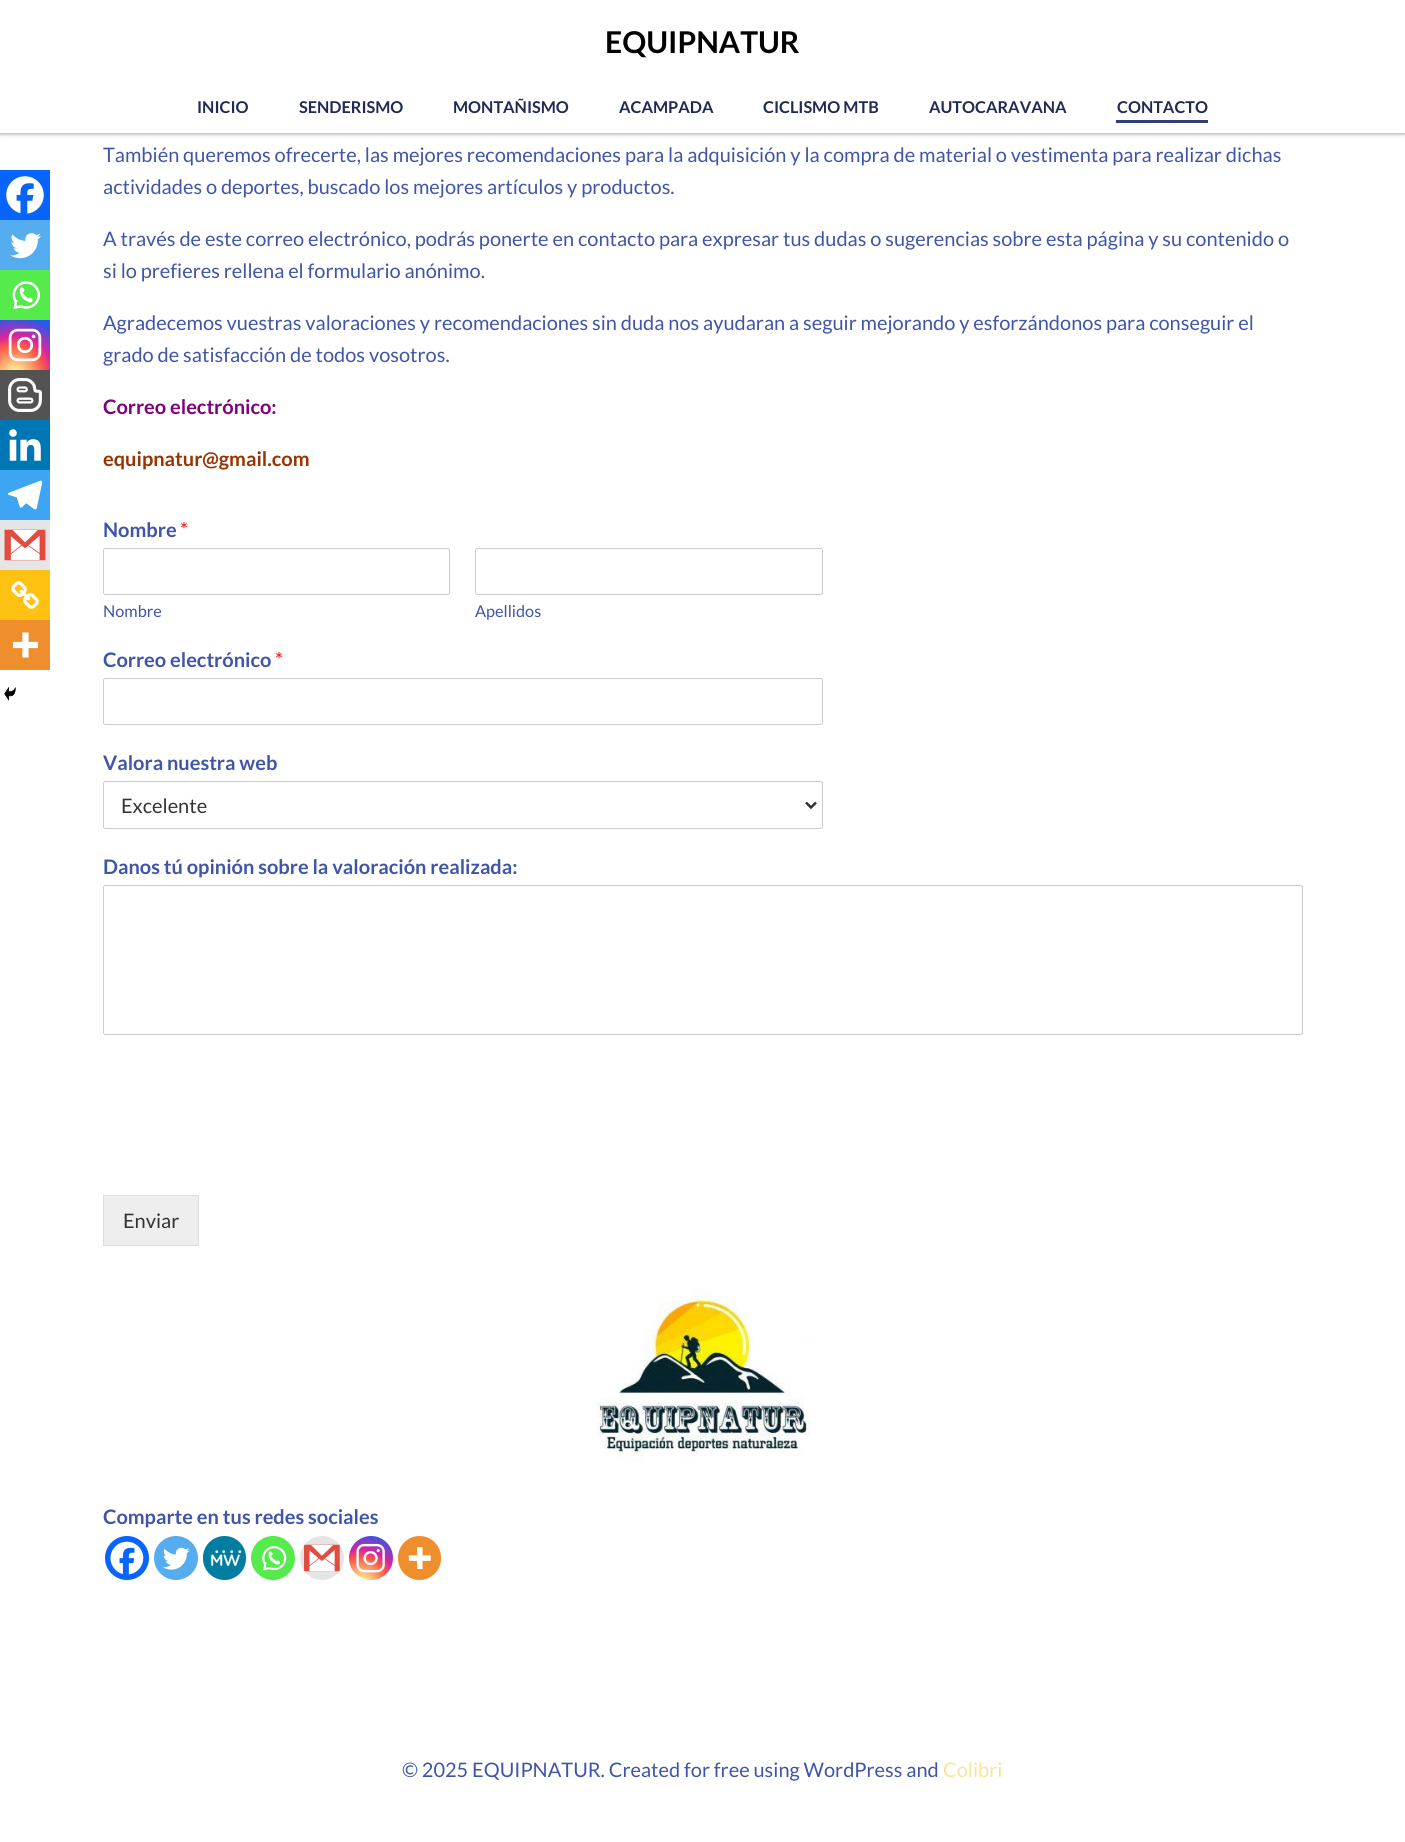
import math
import cairo

surface = cairo.ImageSurface(cairo.FORMAT_RGB24, 1405, 1842)
ctx = cairo.Context(surface)
options = cairo.FontOptions()
options.set_hint_metrics(cairo.HINT_METRICS_OFF)
options.set_hint_style(cairo.HINT_STYLE_NONE)
ctx.set_font_options(options)
ctx.set_miter_limit(4)


def set_color(code):
    ctx.set_source_rgb(*(v / 255 for v in bytes.fromhex(code[-6:])))


def draw_text(x, y, s, family, size, color, bold=False, italic=False):
    ctx.select_font_face(family, cairo.FONT_SLANT_ITALIC if italic else cairo.FONT_SLANT_NORMAL, cairo.FONT_WEIGHT_BOLD if bold else cairo.FONT_WEIGHT_NORMAL)
    ctx.set_font_size(size)
    set_color(color)
    ctx.move_to(x, y)
    ctx.show_text(s)


def fill_rect(x, y, w, h, color):
    set_color(color)
    ctx.rectangle(x, y, w, h)
    ctx.fill()


def rounded_rect(x, y, w, h, r):
    ctx.new_sub_path()
    for i, (u, v) in enumerate([(x + w - r, y + h - r), (x + r, y + h - r), (x + r, y + r), (x + w - r, y + r)]):
        ctx.arc(u, v, r, i * math.pi / 2, (i + 1) * math.pi / 2)
    ctx.close_path()


def draw_shadow(x, y, w, h, r, blur, alpha):
    ctx.push_group_with_content(cairo.CONTENT_ALPHA)
    ctx.set_operator(cairo.OPERATOR_SOURCE)
    for i in range(15, -16, -2):
        e = blur * i / 6
        if min(w, h) + 2 * e > 0:
            ctx.set_source_rgba(0, 0, 0, alpha * math.erfc((i - 1) / 8.5) / 2)
            rounded_rect(x - e, y - e, w + 2 * e, h + 2 * e, max(0, min(r + e + blur * .6, min(w, h) / 2 + e)))
            ctx.fill()
    ctx.mask(ctx.pop_group())


def draw_image(path, x, y, w, h):
    ctx.save()
    ctx.set_source_surface(cairo.ImageSurface.create_from_png(path), x, y)
    ctx.rectangle(x, y, w, h)
    ctx.fill()
    ctx.restore()


set_color("#ffffff")
ctx.paint()
set_color("#000000")
draw_shadow(0, 0, 1405, 133, 0, 2.5, 0.5)
fill_rect(0, 0, 1405, 133, "#ffffff")
draw_text(605, 53, "EQUIPNATUR", "Lato", 30, "#000000", bold=True)
draw_text(197, 113, "INICIO", "Lato", 16.25, "#202a54", bold=True)
draw_text(299, 113, "SENDERISMO", "Lato", 16.25, "#202a54", bold=True)
draw_text(453, 113, "MONTAÑISMO", "Lato", 16.25, "#202a54", bold=True)
draw_text(619, 113, "ACAMPADA", "Lato", 16.25, "#202a54", bold=True)
draw_text(763, 113, "CICLISMO MTB", "Lato", 16.25, "#202a54", bold=True)
draw_text(929, 113, "AUTOCARAVANA", "Lato", 16.25, "#202a54", bold=True)
draw_text(1117, 113, "CONTACTO", "Lato", 16.25, "#202a54", bold=True)
fill_rect(1116, 120, 92, 3, "#303e7a")
fill_rect(0, 170, 50, 50, "#0765fe")
draw_image("assets/img1.png", 6, 176, 38, 38)
fill_rect(0, 220, 50, 50, "#55acee")
draw_image("assets/img2.png", 10, 233, 31, 26)
fill_rect(0, 270, 50, 50, "#55eb4c")
draw_image("assets/img3.png", 12, 281, 28, 28)
gradient = cairo.RadialGradient(15, 374, 0, 15, 374, 64)
gradient.add_color_stop_rgba(0, 0.992, 0.957, 0.592, 1)
gradient.add_color_stop_rgba(0.05, 0.992, 0.957, 0.592, 1)
gradient.add_color_stop_rgba(0.45, 0.992, 0.349, 0.286, 1)
gradient.add_color_stop_rgba(0.6, 0.839, 0.141, 0.624, 1)
gradient.add_color_stop_rgba(0.9, 0.157, 0.353, 0.922, 1)
ctx.set_source(gradient)
ctx.rectangle(0, 320, 50, 50)
ctx.fill()
draw_image("assets/img4.png", 8, 328, 34, 34)
fill_rect(0, 370, 50, 50, "#535353")
draw_image("assets/img5.png", 8, 378, 34, 34)
fill_rect(0, 420, 50, 50, "#0077b5")
draw_image("assets/img6.png", 9, 429, 32, 32)
fill_rect(0, 470, 50, 50, "#3da5f1")
draw_image("assets/img7.png", 7, 480, 36, 30)
fill_rect(0, 520, 50, 50, "#e5e5e5")
draw_image("assets/img8.png", 4, 529, 42, 32)
fill_rect(0, 570, 50, 50, "#ffc112")
draw_image("assets/img9.png", 11, 581, 28, 28)
fill_rect(0, 620, 50, 50, "#ee8e2d")
draw_image("assets/img10.png", 12, 632, 26, 26)
draw_image("assets/img11.png", 4, 686, 12, 15)
draw_text(103, 162, "También queremos ofrecerte, las mejores recomendaciones para la adquisición y la compra de material o vestimenta para realizar dichas", "Lato", 20, "#4055a9")
draw_text(103, 194, "actividades o deportes, buscado los mejores artículos y productos.", "Lato", 20, "#4055a9")
draw_text(103, 246, "A través de este correo electrónico, podrás ponerte en contacto para expresar tus dudas o sugerencias sobre esta página y su contenido o", "Lato", 20, "#4055a9")
draw_text(103, 278, "si lo prefieres rellena el formulario anónimo.", "Lato", 20, "#4055a9")
draw_text(103, 330, "Agradecemos vuestras valoraciones y recomendaciones sin duda nos ayudaran a seguir mejorando y esforzándonos para conseguir el", "Lato", 20, "#4055a9")
draw_text(103, 362, "grado de satisfacción de todos vosotros.", "Lato", 20, "#4055a9")
draw_text(103, 414, "Correo electrónico:", "Lato", 20, "#800080", bold=True)
draw_text(103, 466, "equipnatur@gmail.com", "Lato", 20, "#993300", bold=True)
draw_text(103, 537, "Nombre", "Lato", 20, "#4055a9", bold=True)
draw_text(180, 537, "*", "Lato", 20, "#ff0000")
rounded_rect(103.5, 548.5, 346, 46, 2)
set_color("#cccccc")
ctx.set_line_width(1)
ctx.stroke()
draw_text(103, 617, "Nombre", "Lato", 16.25, "#4055a9")
rounded_rect(475.5, 548.5, 347, 46, 2)
set_color("#cccccc")
ctx.stroke()
draw_text(475, 617, "Apellidos", "Lato", 16.25, "#4055a9")
draw_text(103, 667, "Correo electrónico", "Lato", 20, "#4055a9", bold=True)
draw_text(275, 667, "*", "Lato", 20, "#ff0000")
rounded_rect(103.5, 678.5, 719, 46, 2)
set_color("#cccccc")
ctx.stroke()
draw_text(103, 770, "Valora nuestra web", "Lato", 20, "#4055a9", bold=True)
rounded_rect(103.5, 781.5, 719, 47, 2)
set_color("#cccccc")
ctx.stroke()
ctx.new_path()
ctx.move_to(806, 802.5)
ctx.line_to(811, 807.5)
ctx.line_to(816, 802.5)
set_color("#333333")
ctx.set_line_width(2.5)
ctx.stroke()
draw_text(121, 813, "Excelente", "Lato", 20, "#333333")
draw_text(103, 874, "Danos tú opinión sobre la valoración realizada:", "Lato", 20, "#4055a9", bold=True)
rounded_rect(103.5, 885.5, 1199, 149, 2)
set_color("#cccccc")
ctx.set_line_width(1)
ctx.stroke()
set_color("#eeeeee")
ctx.rectangle(103.5, 1195.5, 95, 50)
ctx.fill_preserve()
set_color("#dddddd")
ctx.stroke()
draw_text(123, 1228, "Enviar", "Lato", 20, "#333333")
draw_image("assets/img12.png", 597, 1289, 214, 173)
draw_text(103, 1524, "Comparte en tus redes sociales", "Lato", 20, "#4055a9", bold=True)
set_color("#0765fe")
ctx.new_path()
ctx.arc(127, 1558, 22, 0, 2 * math.pi)
ctx.fill()
draw_image("assets/img13.png", 110, 1541, 34, 34)
set_color("#55acee")
ctx.arc(176, 1558, 22, 0, 2 * math.pi)
ctx.fill()
draw_image("assets/img14.png", 163, 1547, 27, 23)
set_color("#007da1")
rounded_rect(203, 1536, 43, 44, 21.5)
ctx.fill()
draw_image("assets/img15.png", 211, 1550, 31, 16)
set_color("#55eb4c")
ctx.arc(273, 1558, 22, 0, 2 * math.pi)
ctx.fill()
draw_image("assets/img16.png", 262, 1546, 25, 25)
set_color("#e5e5e5")
ctx.arc(322, 1558, 22, 0, 2 * math.pi)
ctx.fill()
draw_image("assets/img17.png", 303, 1544, 37, 28)
gradient = cairo.RadialGradient(362, 1583, 0, 362, 1583, 56)
gradient.add_color_stop_rgba(0, 0.992, 0.957, 0.592, 1)
gradient.add_color_stop_rgba(0.05, 0.992, 0.957, 0.592, 1)
gradient.add_color_stop_rgba(0.45, 0.992, 0.349, 0.286, 1)
gradient.add_color_stop_rgba(0.6, 0.839, 0.141, 0.624, 1)
gradient.add_color_stop_rgba(0.9, 0.157, 0.353, 0.922, 1)
ctx.set_source(gradient)
ctx.arc(371, 1558, 22, 0, 2 * math.pi)
ctx.fill()
draw_image("assets/img18.png", 356, 1543, 29, 30)
set_color("#ee8e2d")
rounded_rect(398, 1536, 43, 44, 21.5)
ctx.fill()
draw_image("assets/img19.png", 408, 1547, 23, 23)
draw_text(402, 1777, "© 2025 EQUIPNATUR. Created for free using WordPress and", "Lato", 20, "#4055a9")
draw_text(943, 1777, "Colibri", "Lato", 20, "#f7e597")
surface.write_to_png("output.png")
